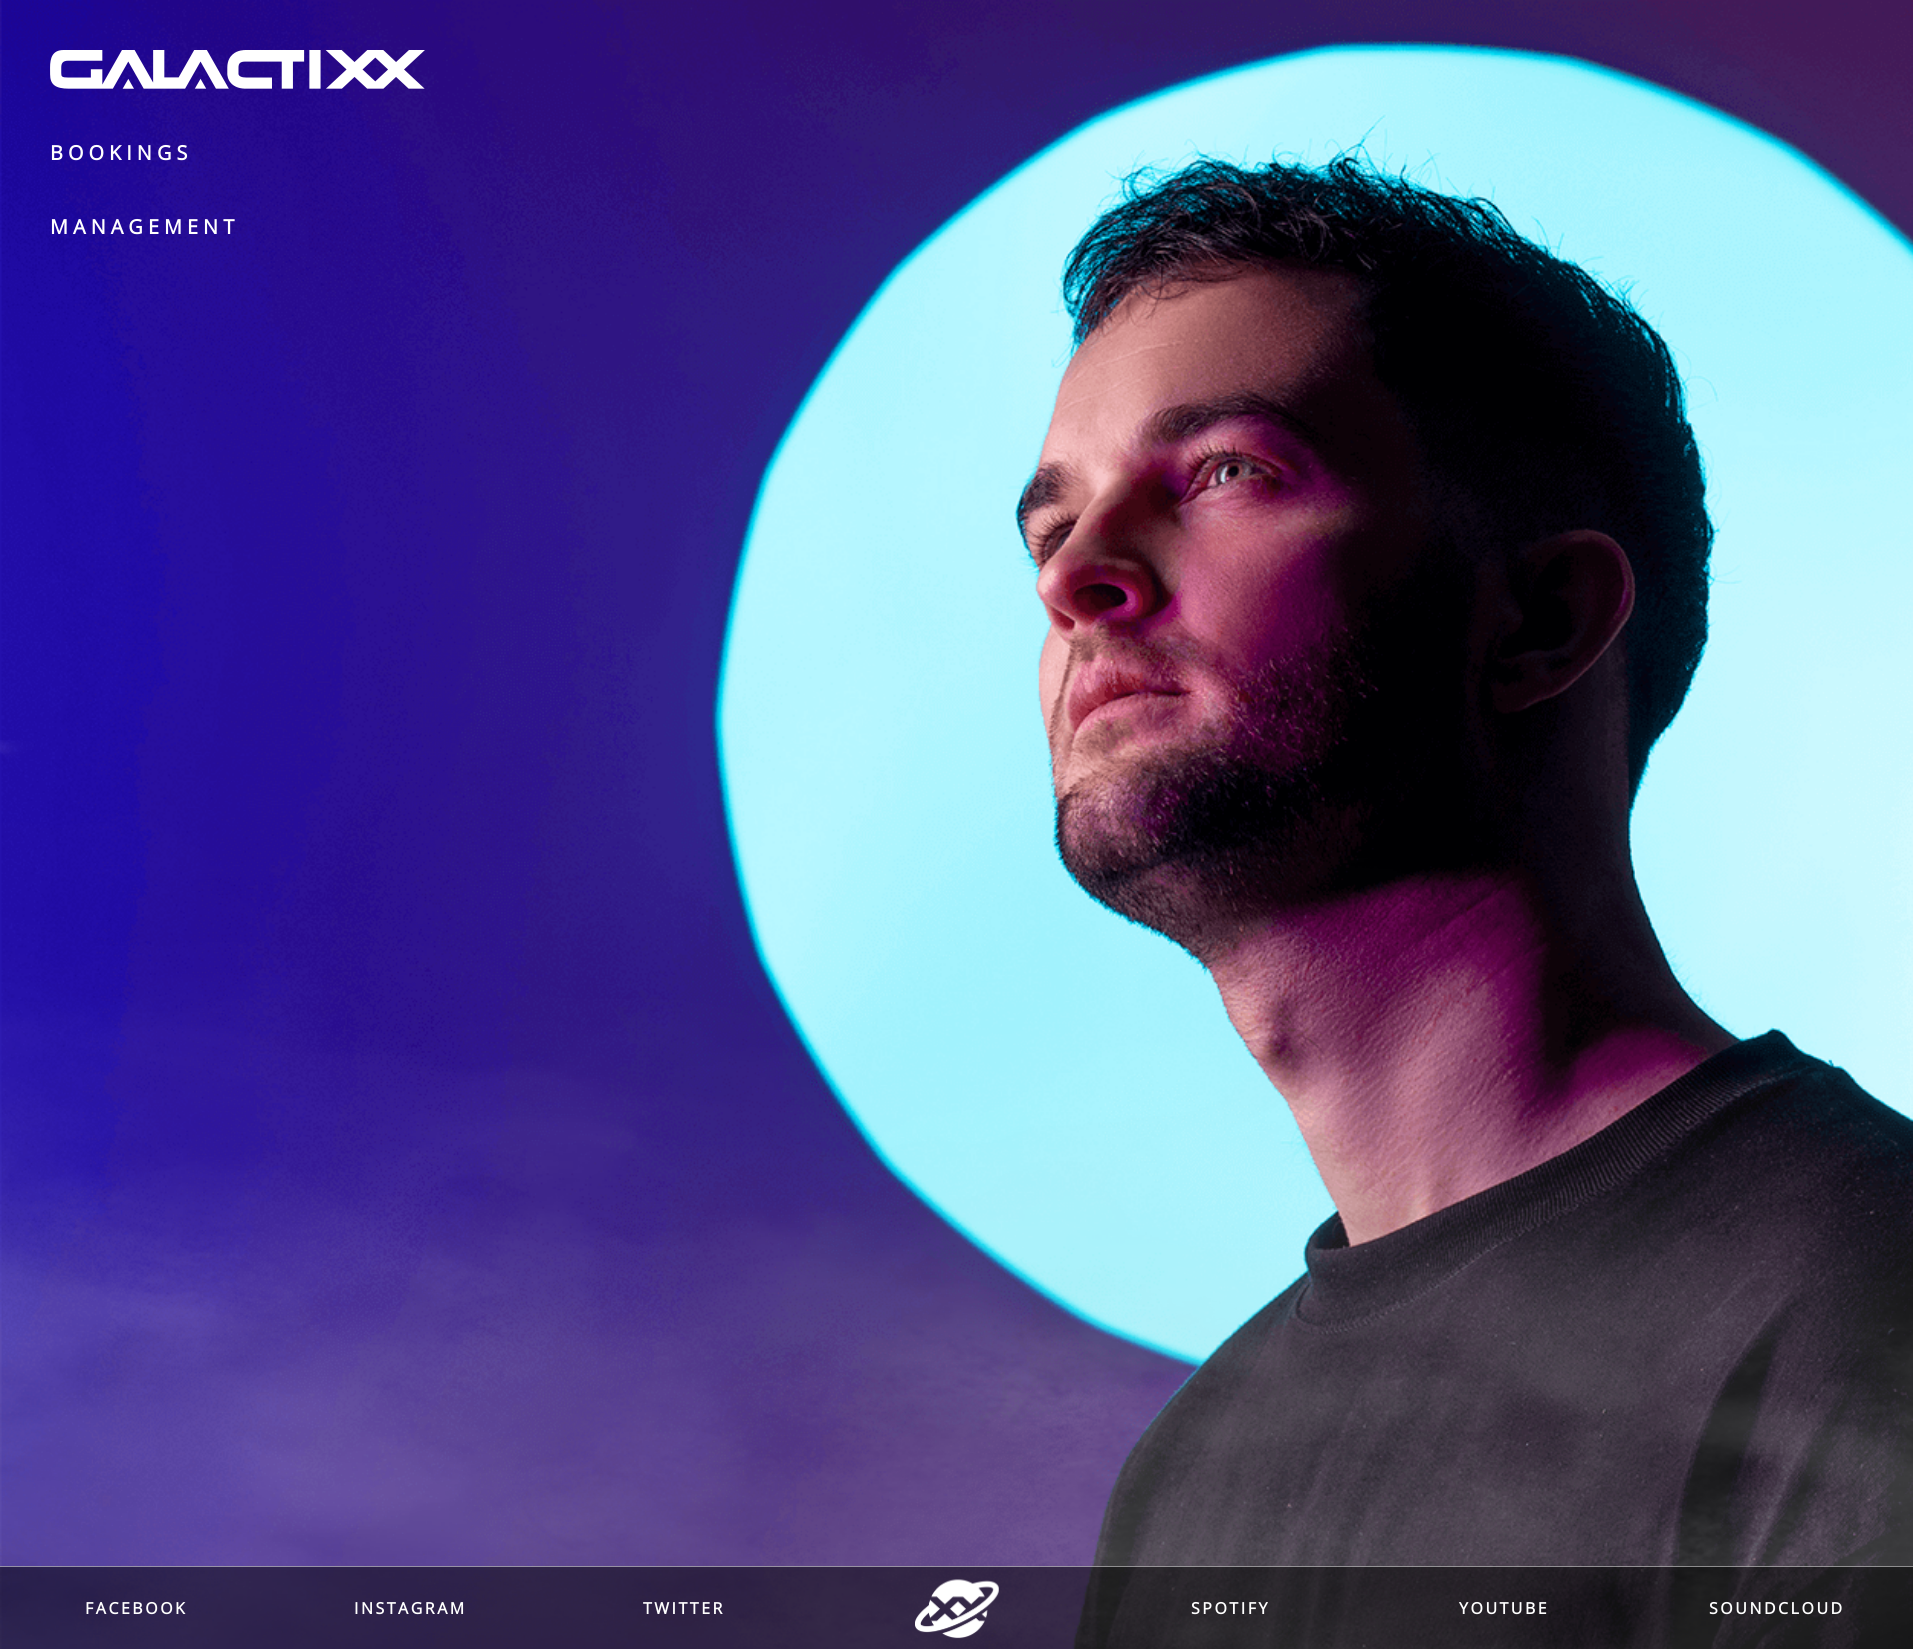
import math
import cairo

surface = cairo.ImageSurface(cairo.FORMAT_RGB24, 1913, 1649)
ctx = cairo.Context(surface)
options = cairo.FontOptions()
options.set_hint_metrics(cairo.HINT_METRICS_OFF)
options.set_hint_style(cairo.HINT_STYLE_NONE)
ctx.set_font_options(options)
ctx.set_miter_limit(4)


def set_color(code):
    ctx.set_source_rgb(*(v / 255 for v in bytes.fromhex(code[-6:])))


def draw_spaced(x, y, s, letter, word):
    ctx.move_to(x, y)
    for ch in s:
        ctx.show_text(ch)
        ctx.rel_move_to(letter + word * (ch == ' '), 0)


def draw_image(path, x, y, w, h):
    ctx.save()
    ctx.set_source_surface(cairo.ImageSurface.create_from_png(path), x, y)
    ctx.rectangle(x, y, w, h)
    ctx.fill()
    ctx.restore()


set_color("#ffffff")
ctx.paint()
draw_image("assets/img1.png", 0, 0, 1913, 1649)
draw_image("assets/img2.png", 50, 50, 375, 39)
ctx.select_font_face("Open Sans", cairo.FONT_SLANT_NORMAL, cairo.FONT_WEIGHT_BOLD)
ctx.set_font_size(20)
set_color("#ffffff")
draw_spaced(50, 160, "BOOKINGS", 5, 0)
draw_spaced(50, 234, "MANAGEMENT", 5, 0)
draw_image("assets/img3.png", 0, 740, 1913, 909)
ctx.set_source_rgba(0, 0, 0, 0.5)
ctx.rectangle(0, 1566, 1913, 83)
ctx.fill()
ctx.set_source_rgba(1, 1, 1, 0.5)
ctx.rectangle(0, 1566, 1913, 1)
ctx.fill()
ctx.set_font_size(16)
set_color("#ffffff")
draw_spaced(85, 1614, "FACEBOOK", 2.5, 0)
draw_spaced(354, 1614, "INSTAGRAM", 2.5, 0)
draw_spaced(643, 1614, "TWITTER", 2.5, 0)
draw_image("assets/img4.png", 915, 1579, 84, 60)
draw_spaced(1191, 1614, "SPOTIFY", 2.5, 0)
draw_spaced(1459, 1614, "YOUTUBE", 2.5, 0)
draw_spaced(1709, 1614, "SOUNDCLOUD", 2.5, 0)
surface.write_to_png("output.png")
